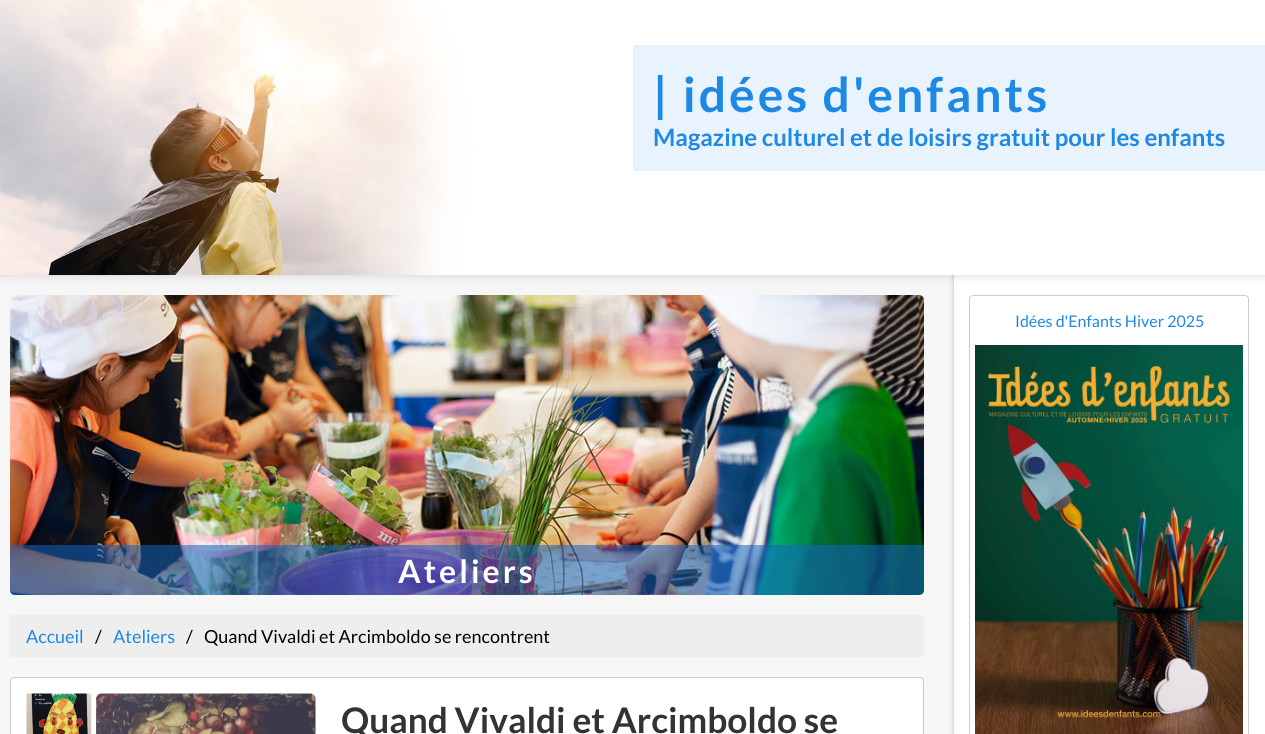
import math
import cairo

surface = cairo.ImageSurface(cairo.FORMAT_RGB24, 1265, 734)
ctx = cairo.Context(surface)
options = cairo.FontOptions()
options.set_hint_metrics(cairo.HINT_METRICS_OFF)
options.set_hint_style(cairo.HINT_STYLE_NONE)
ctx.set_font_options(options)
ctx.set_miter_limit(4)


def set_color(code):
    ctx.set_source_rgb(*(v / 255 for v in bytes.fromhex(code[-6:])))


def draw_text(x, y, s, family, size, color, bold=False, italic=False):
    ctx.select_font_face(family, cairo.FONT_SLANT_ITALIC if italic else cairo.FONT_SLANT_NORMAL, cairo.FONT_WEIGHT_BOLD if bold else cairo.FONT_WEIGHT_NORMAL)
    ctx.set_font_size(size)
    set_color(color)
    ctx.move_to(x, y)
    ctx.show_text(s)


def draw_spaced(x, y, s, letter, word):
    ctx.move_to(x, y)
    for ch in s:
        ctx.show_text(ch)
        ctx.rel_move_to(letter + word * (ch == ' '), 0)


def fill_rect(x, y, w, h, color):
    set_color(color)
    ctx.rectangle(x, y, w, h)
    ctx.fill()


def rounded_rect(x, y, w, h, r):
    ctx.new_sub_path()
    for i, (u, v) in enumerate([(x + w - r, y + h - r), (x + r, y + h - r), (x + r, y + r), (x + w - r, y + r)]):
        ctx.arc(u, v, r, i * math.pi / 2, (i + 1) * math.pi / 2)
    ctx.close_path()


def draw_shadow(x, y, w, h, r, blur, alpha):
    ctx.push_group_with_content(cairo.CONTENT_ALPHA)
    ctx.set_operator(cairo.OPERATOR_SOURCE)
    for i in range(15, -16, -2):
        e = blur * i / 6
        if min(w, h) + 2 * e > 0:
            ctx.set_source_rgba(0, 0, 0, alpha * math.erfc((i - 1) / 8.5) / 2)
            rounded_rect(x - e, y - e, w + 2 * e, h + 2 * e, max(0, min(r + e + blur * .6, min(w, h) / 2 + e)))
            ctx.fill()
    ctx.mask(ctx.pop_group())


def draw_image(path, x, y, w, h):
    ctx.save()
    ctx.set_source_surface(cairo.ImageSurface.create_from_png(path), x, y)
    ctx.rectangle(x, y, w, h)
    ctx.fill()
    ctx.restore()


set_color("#f6f6f6")
ctx.paint()
set_color("#000000")
draw_shadow(954, 275, 311, 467, 0, 2.5, 0.25)
fill_rect(954, 275, 311, 459, "#ffffff")
set_color("#000000")
draw_shadow(0, 0, 1265, 275, 0, 5, 0.15)
draw_image("assets/img1.png", 0, 0, 1265, 275)
fill_rect(633, 45, 632, 126, "#e9f3fd")
ctx.select_font_face("Lato", cairo.FONT_SLANT_NORMAL, cairo.FONT_WEIGHT_BOLD)
ctx.set_font_size(48)
set_color("#1e88e5")
draw_spaced(653, 112, "| idées d'enfants", 3, 0)
draw_text(653, 146, "Magazine culturel et de loisirs gratuit pour les enfants", "Lato", 24, "#1e88e5", bold=True)
rounded_rect(969.5, 295.5, 279, 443, 3.5)
set_color("#cccccc")
ctx.set_line_width(1)
ctx.stroke()
draw_text(1015, 327, "Idées d'Enfants Hiver 2025", "Lato", 16, "#1e88e5")
draw_image("assets/img2.png", 975, 345, 268, 389)
draw_image("assets/img3.png", 10, 295, 914, 300)
ctx.set_source_rgba(0.082, 0.396, 0.753, 0.55)
ctx.new_path()
ctx.move_to(10, 545)
ctx.line_to(924, 545)
ctx.line_to(924, 590)
ctx.curve_to(924, 593, 922, 595, 919, 595)
ctx.line_to(15, 595)
ctx.curve_to(12, 595, 10, 593, 10, 590)
ctx.close_path()
ctx.fill()
ctx.select_font_face("Lato", cairo.FONT_SLANT_NORMAL, cairo.FONT_WEIGHT_BOLD)
ctx.set_font_size(32)
set_color("#ffffff")
draw_spaced(398, 583, "Ateliers", 3, 0)
fill_rect(10, 615, 914, 42, "#eeeeee")
draw_text(26, 643, "Accueil", "Lato", 18, "#1e88e5")
draw_text(95, 643, "/", "Lato", 18, "#000000")
draw_text(113, 643, "Ateliers", "Lato", 18, "#1e88e5")
draw_text(186, 643, "/", "Lato", 18, "#000000")
draw_text(204, 643, "Quand Vivaldi et Arcimboldo se rencontrent", "Lato", 18, "#000000")
set_color("#ffffff")
rounded_rect(10.5, 677.5, 913, 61, 3.5)
ctx.fill_preserve()
set_color("#cccccc")
ctx.stroke()
draw_image("assets/img4.png", 26, 693, 290, 41)
draw_text(341, 733, "Quand Vivaldi et Arcimboldo se", "Lato", 35.25, "#333333", bold=True)
surface.write_to_png("output.png")
